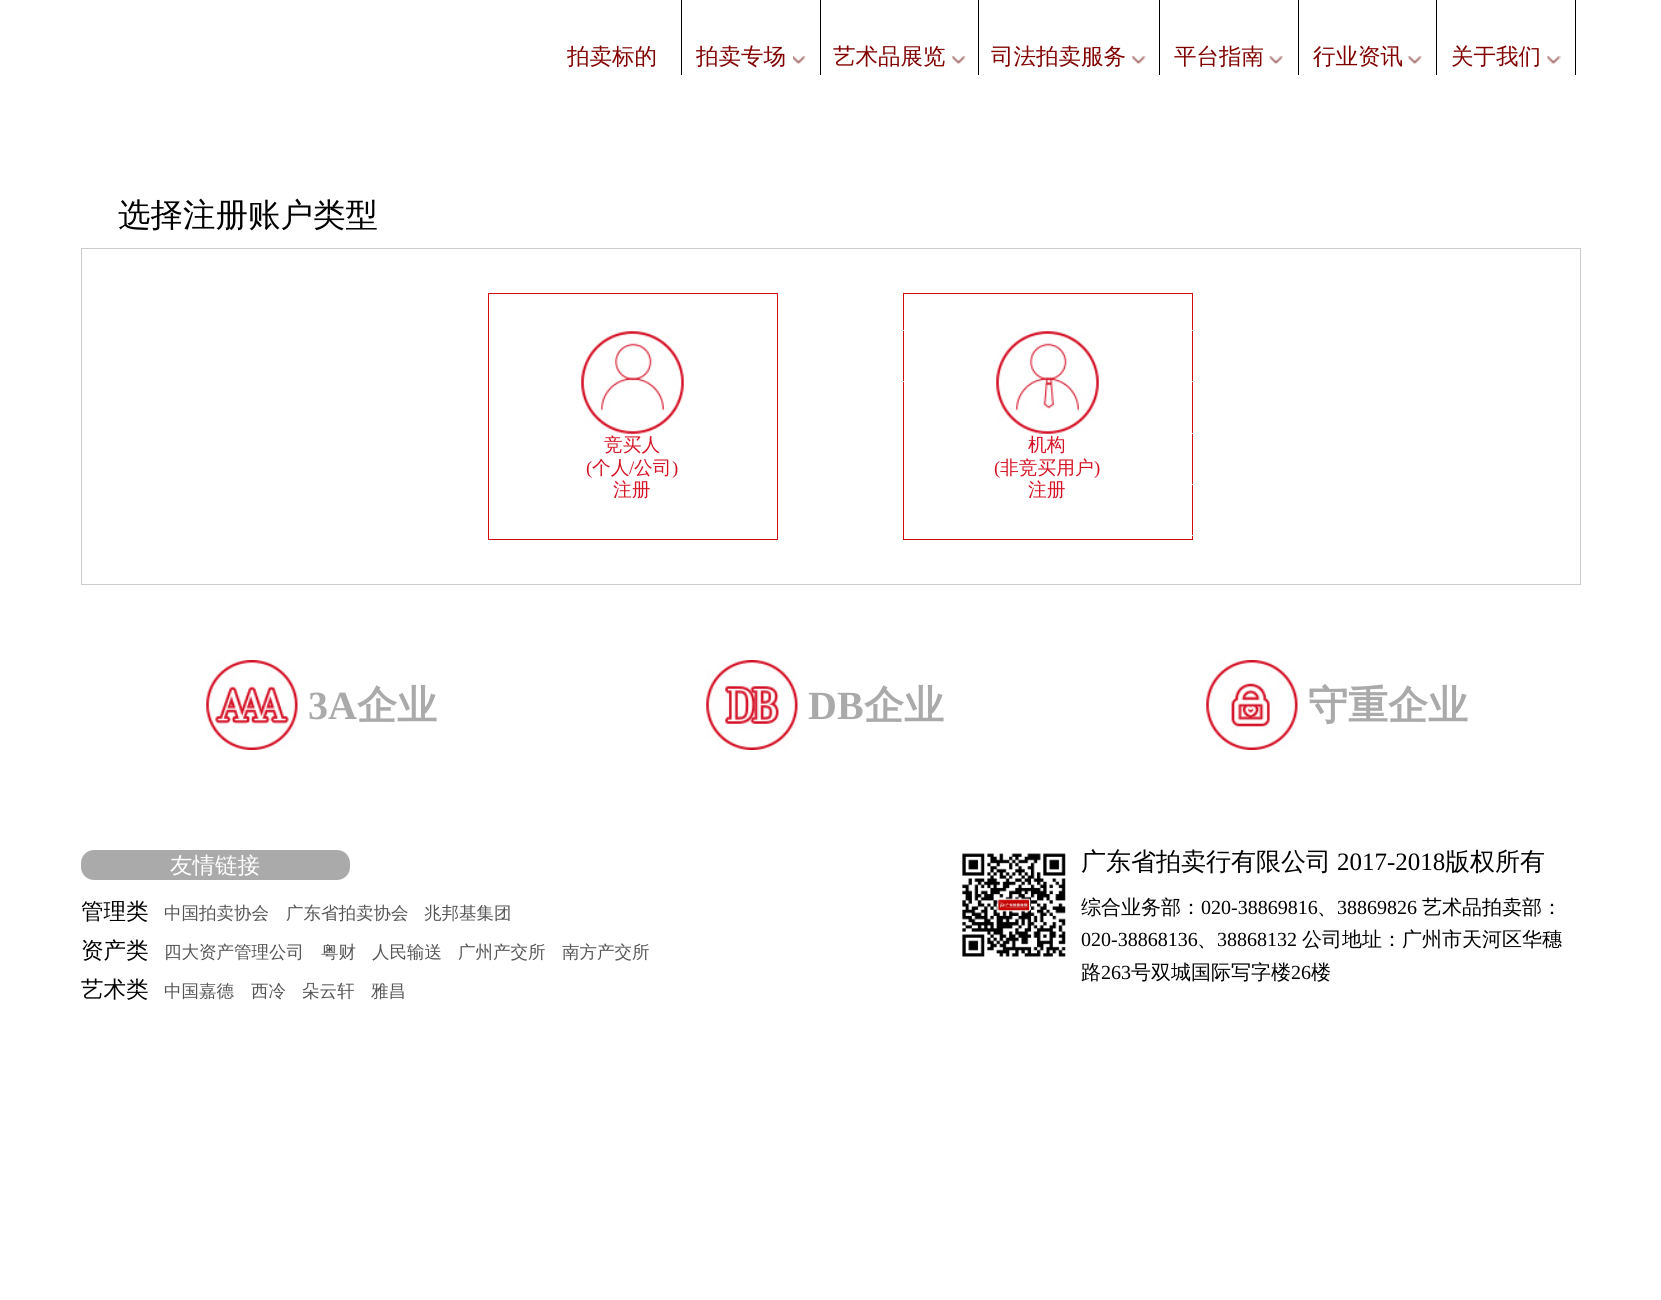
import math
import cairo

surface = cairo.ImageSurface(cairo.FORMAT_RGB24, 1661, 1300)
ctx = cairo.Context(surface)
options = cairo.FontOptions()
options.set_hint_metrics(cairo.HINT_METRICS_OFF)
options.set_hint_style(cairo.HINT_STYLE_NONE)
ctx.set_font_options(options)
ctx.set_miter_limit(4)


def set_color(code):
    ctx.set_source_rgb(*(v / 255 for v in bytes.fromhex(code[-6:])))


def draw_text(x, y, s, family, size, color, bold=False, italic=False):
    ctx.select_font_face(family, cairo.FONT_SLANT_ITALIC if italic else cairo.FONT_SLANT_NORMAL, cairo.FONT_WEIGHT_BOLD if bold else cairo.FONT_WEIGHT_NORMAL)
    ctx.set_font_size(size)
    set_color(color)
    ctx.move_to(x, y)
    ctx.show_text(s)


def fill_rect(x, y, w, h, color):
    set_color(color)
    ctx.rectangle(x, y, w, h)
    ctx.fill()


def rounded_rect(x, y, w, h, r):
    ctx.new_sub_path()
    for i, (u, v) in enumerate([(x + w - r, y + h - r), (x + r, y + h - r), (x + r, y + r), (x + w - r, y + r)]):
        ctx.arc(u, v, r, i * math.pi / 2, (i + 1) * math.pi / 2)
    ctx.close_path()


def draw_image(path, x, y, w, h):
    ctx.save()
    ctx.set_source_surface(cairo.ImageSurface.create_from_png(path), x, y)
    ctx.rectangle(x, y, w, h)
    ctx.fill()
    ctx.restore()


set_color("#ffffff")
ctx.paint()
fill_rect(681, 0, 1, 75, "#000000")
draw_text(567, 64, "拍卖标的", "WenQuanYi Zen Hei Medium", 22.5, "#810000")
fill_rect(820, 0, 1, 75, "#000000")
draw_text(696, 64, "拍卖专场", "WenQuanYi Zen Hei Medium", 22.5, "#810000")
draw_image("assets/img1.png", 793, 56, 13, 8)
fill_rect(978, 0, 1, 75, "#000000")
draw_text(833, 64, "艺术品展览", "WenQuanYi Zen Hei Medium", 22.5, "#810000")
draw_image("assets/img2.png", 952, 56, 14, 8)
ctx.rectangle(903.5, 293.5, 289, 246)
set_color("#d00e0e")
ctx.set_line_width(1)
ctx.stroke()
fill_rect(903, 330, 1, 1, "#ffffff")
fill_rect(903, 381, 1, 1, "#ffffff")
fill_rect(1159, 0, 1, 75, "#000000")
draw_text(991, 64, "司法拍卖服务", "WenQuanYi Zen Hei Medium", 22.5, "#810000")
draw_image("assets/img3.png", 1132, 56, 14, 8)
fill_rect(1298, 0, 1, 75, "#000000")
draw_text(1174, 64, "平台指南", "WenQuanYi Zen Hei Medium", 22.5, "#810000")
draw_image("assets/img4.png", 1269, 56, 14, 8)
fill_rect(1192, 330, 1, 1, "#ffffff")
fill_rect(1192, 381, 1, 1, "#ffffff")
fill_rect(1192, 433, 1, 1, "#ffffff")
fill_rect(1192, 484, 1, 1, "#ffffff")
fill_rect(1192, 535, 1, 1, "#ffffff")
fill_rect(1436, 0, 1, 75, "#000000")
draw_text(1313, 64, "行业资讯", "WenQuanYi Zen Hei Medium", 22.5, "#810000")
draw_image("assets/img5.png", 1408, 56, 14, 8)
fill_rect(1575, 0, 1, 75, "#000000")
draw_text(1451, 64, "关于我们", "WenQuanYi Zen Hei Medium", 22.5, "#810000")
draw_image("assets/img6.png", 1547, 56, 14, 8)
fill_rect(81, 248, 1500, 1, "#cccccc")
draw_text(118, 226, "选择注册账户类型", "WenQuanYi Zen Hei Medium", 32.5, "#000000")
fill_rect(1580, 249, 1, 336, "#cccccc")
fill_rect(81, 584, 1500, 1, "#cccccc")
fill_rect(81, 249, 1, 336, "#cccccc")
ctx.rectangle(488.5, 293.5, 289, 246)
set_color("#d00e0e")
ctx.stroke()
draw_image("assets/img7.png", 581, 331, 103, 103)
draw_text(604, 451, "竞买人", "WenQuanYi Zen Hei Medium", 18.75, "#d41324")
draw_text(586, 474, "(", "Liberation Serif", 18.75, "#d41324")
draw_text(592, 474, "个人", "WenQuanYi Zen Hei Medium", 18.75, "#d41324")
draw_text(629, 474, "/", "Liberation Serif", 18.75, "#d41324")
draw_text(634, 474, "公司", "WenQuanYi Zen Hei Medium", 18.75, "#d41324")
draw_text(672, 474, ")", "Liberation Serif", 18.75, "#d41324")
draw_text(613, 496, "注册", "WenQuanYi Zen Hei Medium", 18.75, "#d41324")
draw_image("assets/img8.png", 996, 331, 103, 103)
draw_text(1028, 451, "机构", "WenQuanYi Zen Hei Medium", 18.75, "#d41324")
draw_text(994, 474, "(", "Liberation Serif", 18.75, "#d41324")
draw_text(1000, 474, "非竞买用户", "WenQuanYi Zen Hei Medium", 18.75, "#d41324")
draw_text(1094, 474, ")", "Liberation Serif", 18.75, "#d41324")
draw_text(1028, 496, "注册", "WenQuanYi Zen Hei Medium", 18.75, "#d41324")
draw_image("assets/img9.png", 206, 660, 92, 90)
draw_text(308, 719, "3A", "Liberation Serif", 40, "#aaaaaa", bold=True)
draw_text(357, 719, "企业", "WenQuanYi Zen Hei", 40, "#aaaaaa", bold=True)
draw_image("assets/img10.png", 706, 660, 92, 90)
draw_text(808, 719, "DB", "Liberation Serif", 40, "#aaaaaa", bold=True)
draw_text(864, 719, "企业", "WenQuanYi Zen Hei", 40, "#aaaaaa", bold=True)
draw_image("assets/img11.png", 1206, 660, 92, 90)
draw_text(1308, 719, "守重企业", "WenQuanYi Zen Hei", 40, "#aaaaaa", bold=True)
rounded_rect(81, 850, 269, 30, 13)
ctx.fill()
draw_text(170, 873, "友情链接", "WenQuanYi Zen Hei Medium", 22.5, "#ffffff")
draw_text(81, 919, "管理类", "WenQuanYi Zen Hei Medium", 22.5, "#000000")
draw_text(164, 919, "中国拍卖协会", "WenQuanYi Zen Hei Medium", 17.5, "#555555")
draw_text(286, 919, "广东省拍卖协会", "WenQuanYi Zen Hei Medium", 17.5, "#555555")
draw_text(424, 919, "兆邦基集团", "WenQuanYi Zen Hei Medium", 17.5, "#555555")
draw_text(81, 958, "资产类", "WenQuanYi Zen Hei Medium", 22.5, "#000000")
draw_text(164, 958, "四大资产管理公司", "WenQuanYi Zen Hei Medium", 17.5, "#555555")
draw_text(321, 958, "粤财", "WenQuanYi Zen Hei Medium", 17.5, "#555555")
draw_text(372, 958, "人民输送", "WenQuanYi Zen Hei Medium", 17.5, "#555555")
draw_text(458, 958, "广州产交所", "WenQuanYi Zen Hei Medium", 17.5, "#555555")
draw_text(562, 958, "南方产交所", "WenQuanYi Zen Hei Medium", 17.5, "#555555")
draw_text(81, 997, "艺术类", "WenQuanYi Zen Hei Medium", 22.5, "#000000")
draw_text(164, 997, "中国嘉德", "WenQuanYi Zen Hei Medium", 17.5, "#555555")
draw_text(251, 997, "西冷", "WenQuanYi Zen Hei Medium", 17.5, "#555555")
draw_text(302, 997, "朵云轩", "WenQuanYi Zen Hei Medium", 17.5, "#555555")
draw_text(371, 997, "雅昌", "WenQuanYi Zen Hei Medium", 17.5, "#555555")
draw_image("assets/img12.png", 962, 853, 104, 104)
draw_text(1081, 870, "广东省拍卖行有限公司", "WenQuanYi Zen Hei Medium", 25, "#000000")
draw_text(1337, 870, "2017-2018", "Liberation Serif", 25, "#000000")
draw_text(1445, 870, "版权所有", "WenQuanYi Zen Hei Medium", 25, "#000000")
draw_text(1081, 914, "综合业务部：", "WenQuanYi Zen Hei Medium", 20, "#000000")
draw_text(1201, 914, "020-38869816", "Liberation Serif", 20, "#000000")
draw_text(1317, 914, "、", "WenQuanYi Zen Hei Medium", 20, "#000000")
draw_text(1337, 914, "38869826", "Liberation Serif", 20, "#000000")
draw_text(1422, 914, "艺术品拍卖部：", "WenQuanYi Zen Hei Medium", 20, "#000000")
draw_text(1081, 946, "020-38868136", "Liberation Serif", 20, "#000000")
draw_text(1197, 946, "、", "WenQuanYi Zen Hei Medium", 20, "#000000")
draw_text(1217, 946, "38868132", "Liberation Serif", 20, "#000000")
draw_text(1302, 946, "公司地址：广州市天河区华穗", "WenQuanYi Zen Hei Medium", 20, "#000000")
draw_text(1081, 979, "路", "WenQuanYi Zen Hei Medium", 20, "#000000")
draw_text(1101, 979, "263", "Liberation Serif", 20, "#000000")
draw_text(1131, 979, "号双城国际写字楼", "WenQuanYi Zen Hei Medium", 20, "#000000")
draw_text(1291, 979, "26", "Liberation Serif", 20, "#000000")
draw_text(1311, 979, "楼", "WenQuanYi Zen Hei Medium", 20, "#000000")
surface.write_to_png("output.png")
